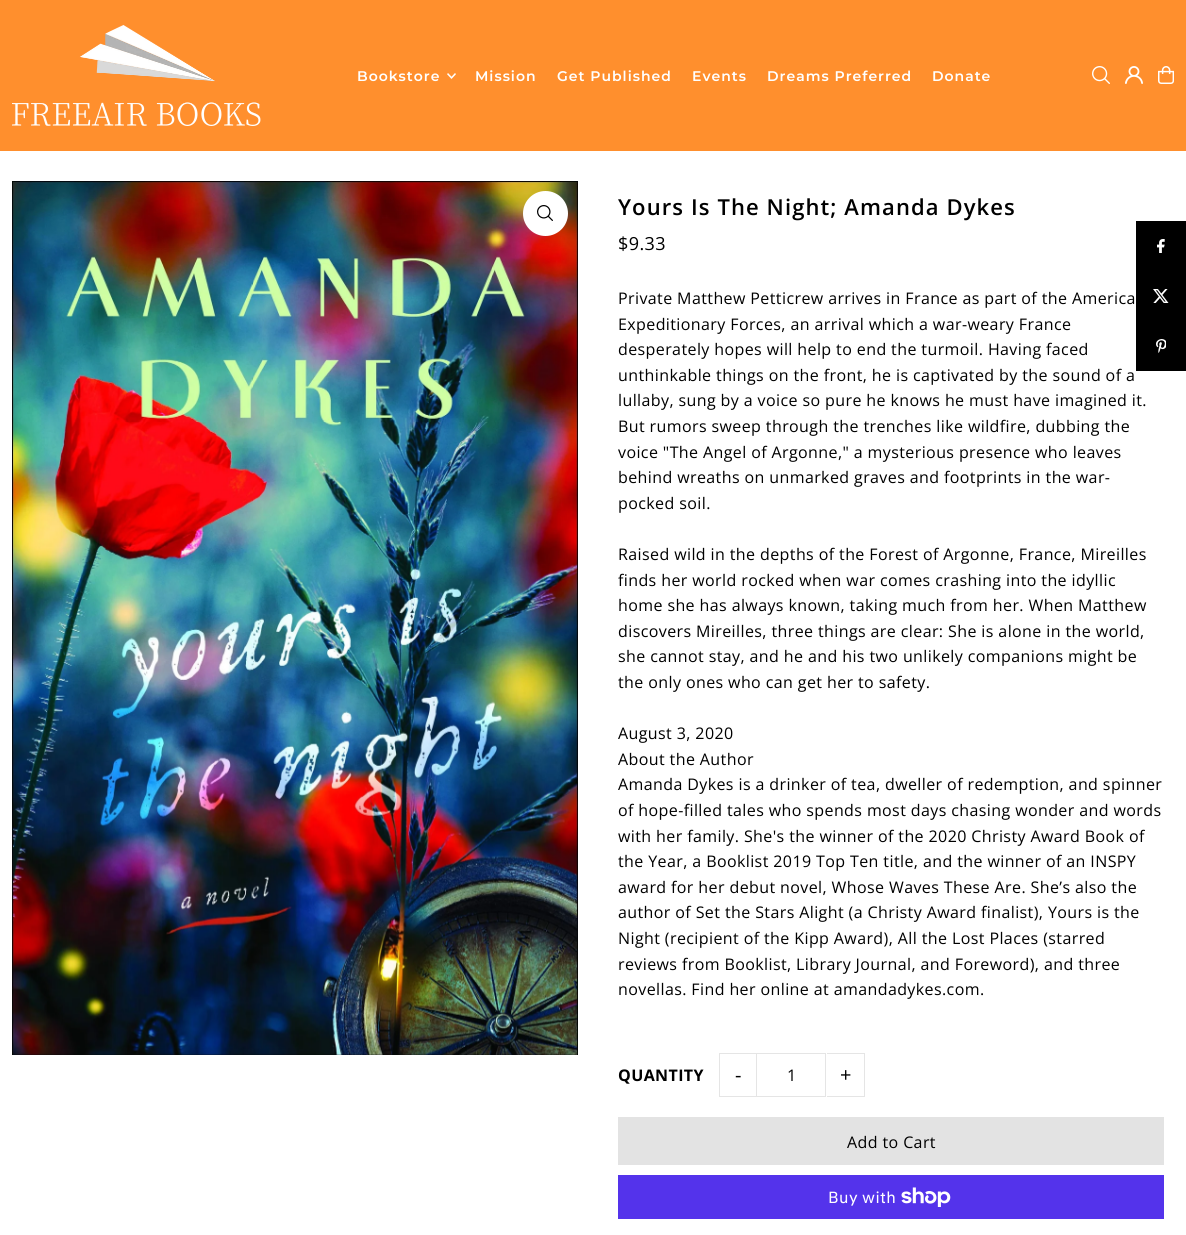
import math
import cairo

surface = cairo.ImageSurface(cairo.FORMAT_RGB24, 1186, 1235)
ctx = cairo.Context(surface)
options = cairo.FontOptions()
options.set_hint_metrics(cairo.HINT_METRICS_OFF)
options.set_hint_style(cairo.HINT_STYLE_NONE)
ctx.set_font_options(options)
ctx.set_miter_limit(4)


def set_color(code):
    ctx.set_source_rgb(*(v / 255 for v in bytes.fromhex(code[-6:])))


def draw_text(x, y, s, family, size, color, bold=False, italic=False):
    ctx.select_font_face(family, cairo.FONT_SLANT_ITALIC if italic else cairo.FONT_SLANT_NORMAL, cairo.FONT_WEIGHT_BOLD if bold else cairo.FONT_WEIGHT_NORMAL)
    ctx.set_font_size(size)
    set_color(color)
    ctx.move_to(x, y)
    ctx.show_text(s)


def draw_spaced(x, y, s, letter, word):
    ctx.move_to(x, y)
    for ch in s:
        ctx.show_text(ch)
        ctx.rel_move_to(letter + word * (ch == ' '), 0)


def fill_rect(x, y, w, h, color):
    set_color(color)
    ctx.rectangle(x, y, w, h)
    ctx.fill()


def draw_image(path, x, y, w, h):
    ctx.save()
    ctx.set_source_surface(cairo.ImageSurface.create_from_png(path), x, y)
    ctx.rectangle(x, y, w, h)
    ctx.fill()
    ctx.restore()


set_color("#ffffff")
ctx.paint()
fill_rect(0, 0, 1186, 151, "#ff8f2d")
draw_image("assets/img1.png", 12, 25, 249, 101)
ctx.select_font_face("Montserrat SemiBold")
ctx.set_font_size(14)
set_color("#ffffff")
draw_spaced(357, 81, "Bookstore", 1, 0)
draw_image("assets/img2.png", 447, 73, 9, 6)
draw_spaced(475, 81, "Mission", 1, 0)
draw_spaced(557, 81, "Get Published", 1, 0)
draw_spaced(692, 81, "Events", 1, 0)
draw_spaced(767, 81, "Dreams Preferred", 1, 0)
draw_spaced(932, 81, "Donate", 1, 0)
draw_image("assets/img3.png", 1092, 66, 18, 18)
draw_image("assets/img4.png", 1125, 66, 18, 18)
draw_image("assets/img5.png", 1158, 66, 16, 18)
draw_image("assets/img6.png", 12, 181, 566, 874)
ctx.arc(545.5, 213.5, 22.5, 0, 2 * math.pi)
ctx.fill()
draw_image("assets/img7.png", 537, 205, 16, 16)
ctx.select_font_face("Open Sans SemiBold")
ctx.set_font_size(22)
set_color("#000000")
draw_spaced(618, 215, "Yours Is The Night; Amanda Dykes", 1.1, 0)
ctx.select_font_face("Open Sans")
ctx.set_font_size(18)
draw_spaced(618, 250, "$9.33", 0.4, 0)
ctx.set_font_size(16)
draw_spaced(618, 304, "Private Matthew Petticrew arrives in France as part of the America", 0.4, 0)
draw_spaced(618, 330, "Expeditionary Forces, an arrival which a war-weary France", 0.4, 0)
draw_spaced(618, 355, "desperately hopes will help to end the turmoil. Having faced", 0.4, 0)
draw_spaced(618, 381, "unthinkable things on the front, he is captivated by the sound of a", 0.4, 0)
draw_spaced(618, 406, "lullaby, sung by a voice so pure he knows he must have imagined it.", 0.4, 0)
draw_spaced(618, 432, "But rumors sweep through the trenches like wildfire, dubbing the", 0.4, 0)
draw_spaced(618, 458, "voice \"The Angel of Argonne,\" a mysterious presence who leaves", 0.4, 0)
draw_spaced(618, 483, "behind wreaths on unmarked graves and footprints in the war-", 0.4, 0)
draw_spaced(618, 509, "pocked soil.", 0.4, 0)
draw_spaced(618, 560, "Raised wild in the depths of the Forest of Argonne, France, Mireilles", 0.4, 0)
draw_spaced(618, 586, "finds her world rocked when war comes crashing into the idyllic", 0.4, 0)
draw_spaced(618, 611, "home she has always known, taking much from her. When Matthew", 0.4, 0)
draw_spaced(618, 637, "discovers Mireilles, three things are clear: She is alone in the world,", 0.4, 0)
draw_spaced(618, 662, "she cannot stay, and he and his two unlikely companions might be", 0.4, 0)
draw_spaced(618, 688, "the only ones who can get her to safety.", 0.4, 0)
draw_spaced(618, 739, "August 3, 2020", 0.4, 0)
draw_spaced(618, 765, "About the Author", 0.4, 0)
draw_spaced(618, 790, "Amanda Dykes is a drinker of tea, dweller of redemption, and spinner", 0.4, 0)
draw_spaced(618, 816, "of hope-filled tales who spends most days chasing wonder and words", 0.4, 0)
draw_spaced(618, 842, "with her family. She's the winner of the 2020 Christy Award Book of", 0.4, 0)
draw_spaced(618, 867, "the Year, a Booklist 2019 Top Ten title, and the winner of an INSPY", 0.4, 0)
draw_spaced(618, 893, "award for her debut novel, Whose Waves These Are. She’s also the", 0.4, 0)
draw_spaced(618, 918, "author of Set the Stars Alight (a Christy Award finalist), Yours is the", 0.4, 0)
draw_spaced(618, 944, "Night (recipient of the Kipp Award), All the Lost Places (starred", 0.4, 0)
draw_spaced(618, 970, "reviews from Booklist, Library Journal, and Foreword), and three", 0.4, 0)
draw_spaced(618, 995, "novellas. Find her online at amandadykes.com.", 0.4, 0)
ctx.select_font_face("Open Sans", cairo.FONT_SLANT_NORMAL, cairo.FONT_WEIGHT_BOLD)
draw_spaced(618, 1081, "QUANTITY", 0.4, 0)
fill_rect(719, 1053, 38, 1, "#e5e5e5")
fill_rect(719, 1096, 38, 1, "#e5e5e5")
fill_rect(719, 1053, 1, 44, "#e5e5e5")
draw_text(735, 1082, "-", "Open Sans", 20, "#000000")
ctx.rectangle(756.5, 1053.5, 69, 43)
set_color("#e5e5e5")
ctx.set_line_width(1)
ctx.stroke()
ctx.set_font_size(16)
set_color("#000000")
draw_spaced(787, 1081, "1", 0.4, 0)
fill_rect(827, 1053, 38, 1, "#e5e5e5")
fill_rect(864, 1053, 1, 44, "#e5e5e5")
fill_rect(827, 1096, 38, 1, "#e5e5e5")
draw_text(840, 1082, "+", "Open Sans", 20, "#000000")
fill_rect(618, 1117, 546, 48, "#e3e3e3")
ctx.set_font_size(16)
set_color("#000000")
draw_spaced(847, 1148, "Add to Cart", 0.4, 0)
fill_rect(618, 1175, 546, 44, "#5433eb")
ctx.select_font_face("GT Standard")
set_color("#ffffff")
draw_spaced(828, 1203, "Buy with", 0.4, 0)
draw_image("assets/img8.png", 901, 1187, 50, 20)
fill_rect(1136, 221, 50, 150, "#000000")
draw_image("assets/img9.png", 1157, 239, 8, 14)
draw_image("assets/img10.png", 1153, 289, 16, 14)
draw_image("assets/img11.png", 1156, 339, 10, 14)
surface.write_to_png("output.png")
